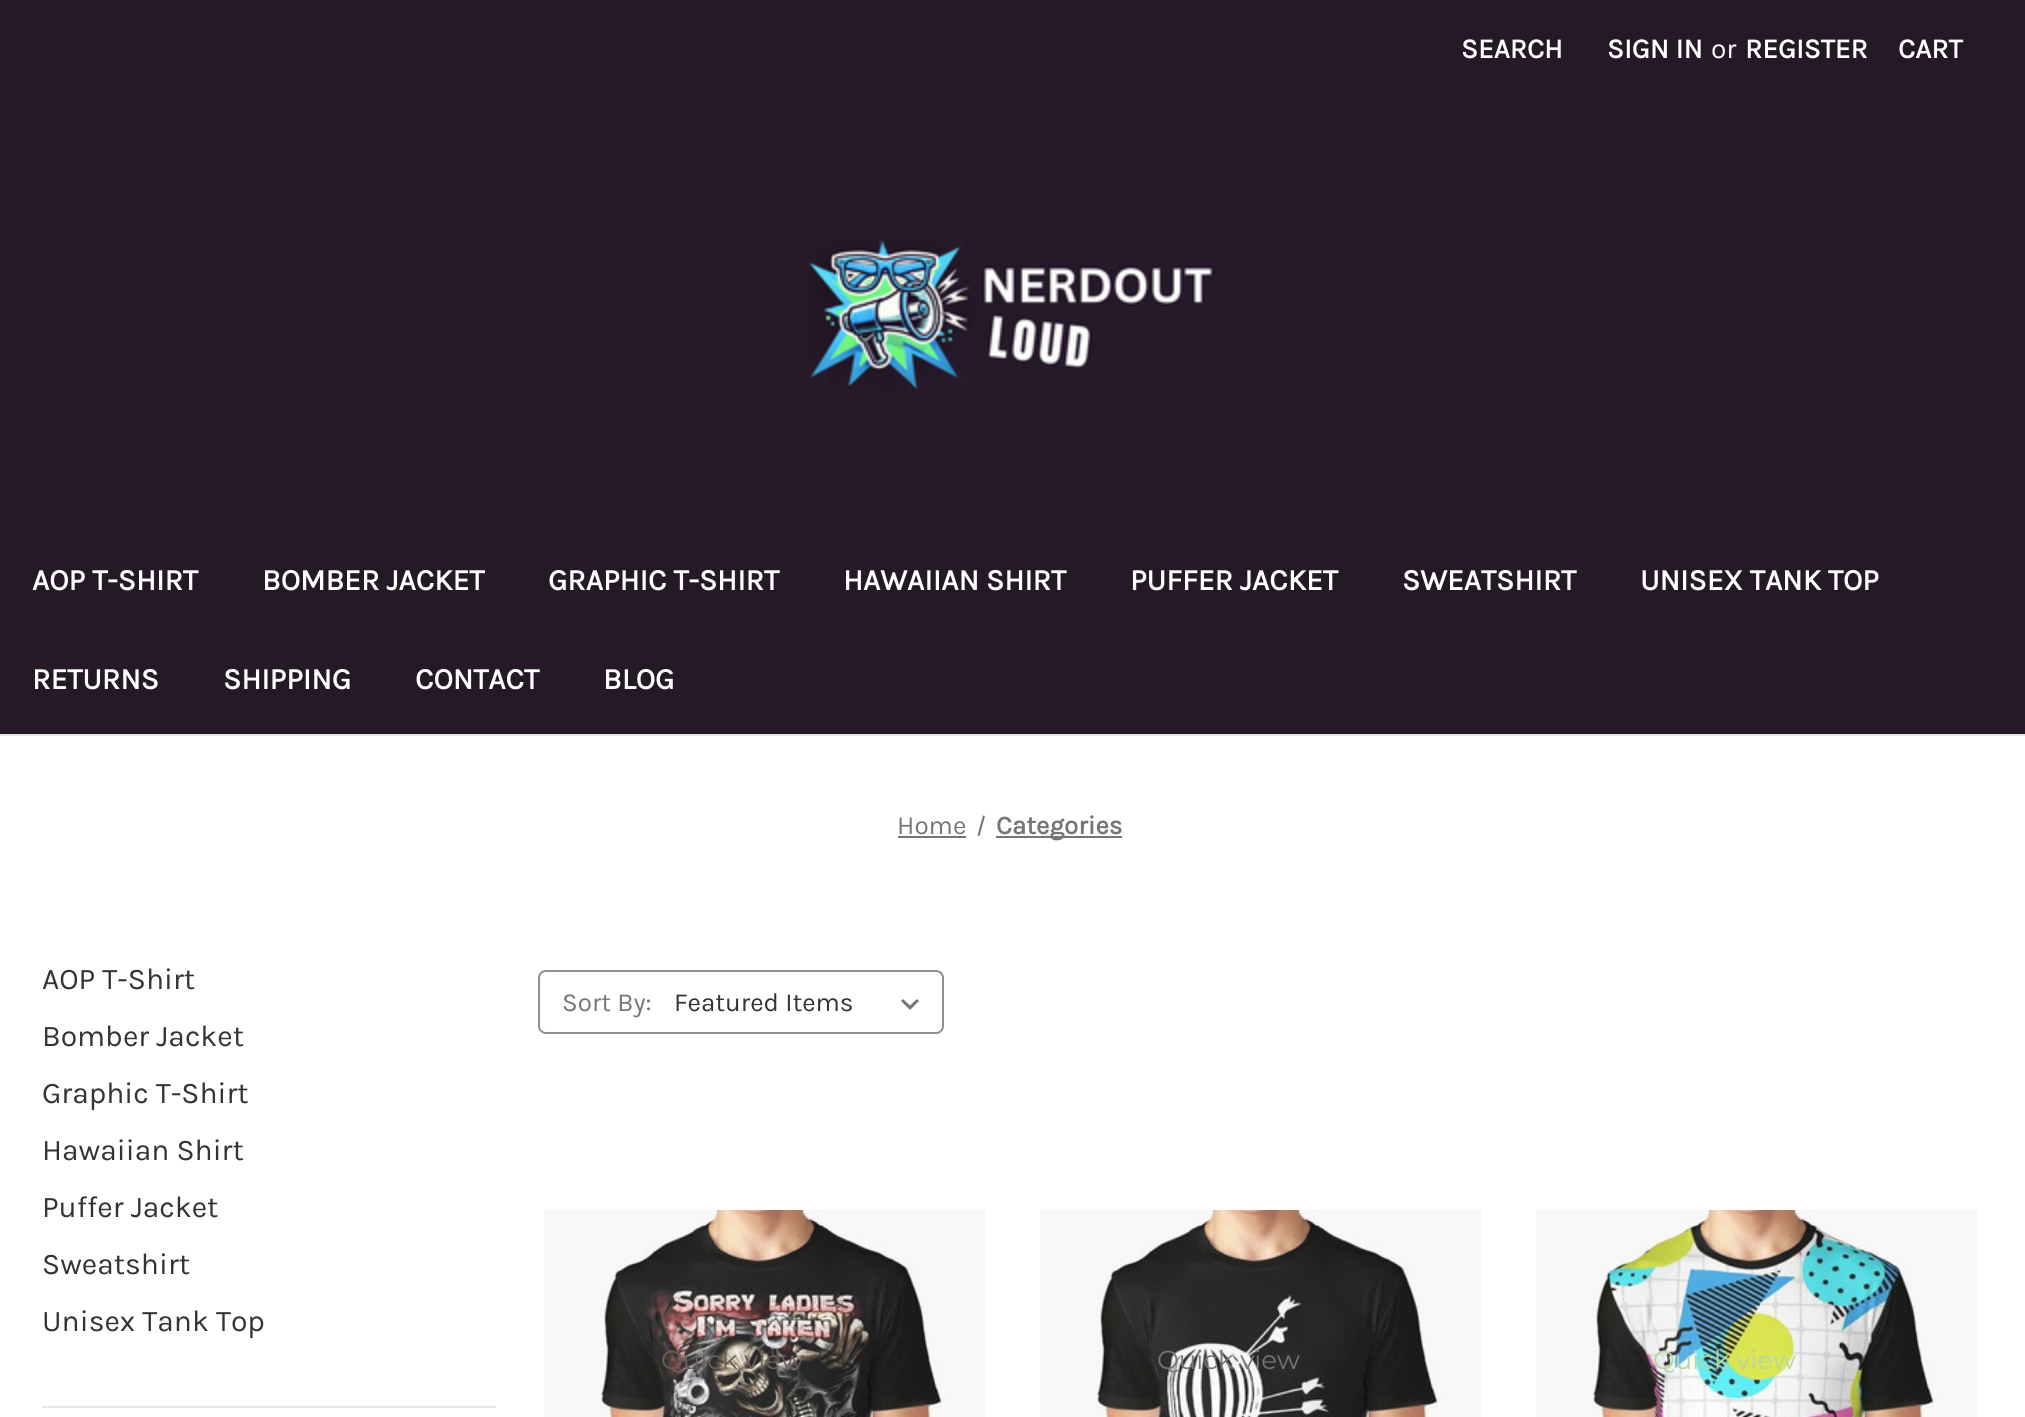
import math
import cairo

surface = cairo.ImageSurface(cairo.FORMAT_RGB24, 2025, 1417)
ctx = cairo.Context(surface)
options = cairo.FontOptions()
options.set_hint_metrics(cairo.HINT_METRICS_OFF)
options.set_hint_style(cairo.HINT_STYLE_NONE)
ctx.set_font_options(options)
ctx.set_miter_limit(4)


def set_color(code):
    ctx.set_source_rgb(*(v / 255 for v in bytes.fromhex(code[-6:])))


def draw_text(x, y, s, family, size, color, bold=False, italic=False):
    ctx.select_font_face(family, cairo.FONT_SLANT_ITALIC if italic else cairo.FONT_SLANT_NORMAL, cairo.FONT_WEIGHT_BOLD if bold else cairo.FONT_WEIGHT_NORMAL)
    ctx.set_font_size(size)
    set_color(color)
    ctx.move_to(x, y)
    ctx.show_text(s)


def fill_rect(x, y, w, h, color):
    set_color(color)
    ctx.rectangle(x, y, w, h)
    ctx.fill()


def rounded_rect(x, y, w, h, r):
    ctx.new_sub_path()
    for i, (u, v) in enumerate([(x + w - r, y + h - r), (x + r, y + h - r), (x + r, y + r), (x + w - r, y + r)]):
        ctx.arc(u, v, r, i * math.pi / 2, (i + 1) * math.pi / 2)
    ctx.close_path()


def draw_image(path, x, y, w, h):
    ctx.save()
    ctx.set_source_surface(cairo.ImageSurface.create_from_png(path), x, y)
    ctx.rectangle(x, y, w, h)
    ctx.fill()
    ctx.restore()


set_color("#ffffff")
ctx.paint()
fill_rect(0, 0, 2025, 734, "#251928")
fill_rect(0, 734, 2025, 2, "#e5e5e5")
draw_text(1461, 58, "SEARCH", "Karla", 28, "#ffffff", bold=True)
draw_text(1607, 58, "SIGN IN", "Karla", 28, "#ffffff", bold=True)
draw_text(1711, 58, "or", "Karla", 28, "#ffffff")
draw_text(1745, 58, "REGISTER", "Karla", 28, "#ffffff", bold=True)
draw_text(1898, 58, "CART", "Karla", 28, "#ffffff", bold=True)
draw_image("assets/img1.png", 809, 239, 405, 154)
draw_text(32, 590, "AOP T-SHIRT", "Karla", 30, "#ffffff", bold=True)
draw_text(262, 590, "BOMBER JACKET", "Karla", 30, "#ffffff", bold=True)
draw_text(548, 590, "GRAPHIC T-SHIRT", "Karla", 30, "#ffffff", bold=True)
draw_text(843, 590, "HAWAIIAN SHIRT", "Karla", 30, "#ffffff", bold=True)
draw_text(1130, 590, "PUFFER JACKET", "Karla", 30, "#ffffff", bold=True)
draw_text(1402, 590, "SWEATSHIRT", "Karla", 30, "#ffffff", bold=True)
draw_text(1640, 590, "UNISEX TANK TOP", "Karla", 30, "#ffffff", bold=True)
draw_text(32, 689, "RETURNS", "Karla", 30, "#ffffff", bold=True)
draw_text(223, 689, "SHIPPING", "Karla", 30, "#ffffff", bold=True)
draw_text(415, 689, "CONTACT", "Karla", 30, "#ffffff", bold=True)
draw_text(603, 689, "BLOG", "Karla", 30, "#ffffff", bold=True)
draw_text(897, 834, "Home", "Karla", 26, "#757575")
fill_rect(898, 836, 68, 2, "#757575")
ctx.new_path()
ctx.move_to(983, 815.5)
ctx.line_to(985, 816)
ctx.line_to(979.5, 836)
ctx.line_to(977.5, 835.5)
ctx.close_path()
ctx.fill()
fill_rect(996, 836, 126, 2, "#757575")
draw_text(996, 834, "Categories", "Karla", 26, "#757575", bold=True)
draw_text(42, 989, "AOP T-Shirt", "Karla", 30, "#333333")
draw_text(42, 1046, "Bomber Jacket", "Karla", 30, "#333333")
draw_text(42, 1103, "Graphic T-Shirt", "Karla", 30, "#333333")
draw_text(42, 1160, "Hawaiian Shirt", "Karla", 30, "#333333")
draw_text(42, 1217, "Puffer Jacket", "Karla", 30, "#333333")
draw_text(42, 1274, "Sweatshirt", "Karla", 30, "#333333")
draw_text(42, 1331, "Unisex Tank Top", "Karla", 30, "#333333")
fill_rect(42, 1406, 454, 2, "#e5e5e5")
rounded_rect(539, 971, 404, 62, 7)
set_color("#8f8f8f")
ctx.stroke()
draw_text(562, 1011, "Sort By:", "Karla", 26, "#757575")
set_color("#ffffff")
rounded_rect(668, 972, 274, 60, 8)
ctx.fill()
set_color("#757575")
ctx.new_path()
ctx.move_to(917, 999)
ctx.line_to(910, 1005.5)
ctx.line_to(903, 999)
ctx.line_to(901, 1001)
ctx.line_to(910, 1010)
ctx.line_to(919, 1001)
ctx.close_path()
ctx.fill()
draw_text(674, 1011, "Featured Items", "Karla", 26, "#333333")
draw_image("assets/img2.png", 544, 1210, 442, 207)
draw_text(661, 1369, "Quick view", "Montserrat", 26, "#685f5b")
draw_image("assets/img3.png", 1040, 1210, 442, 207)
draw_text(1157, 1369, "Quick view", "Montserrat", 26, "#757575")
draw_image("assets/img4.png", 1536, 1210, 442, 207)
draw_text(1653, 1369, "Quick view", "Montserrat", 26, "#b8d4a1")
surface.write_to_png("output.png")
